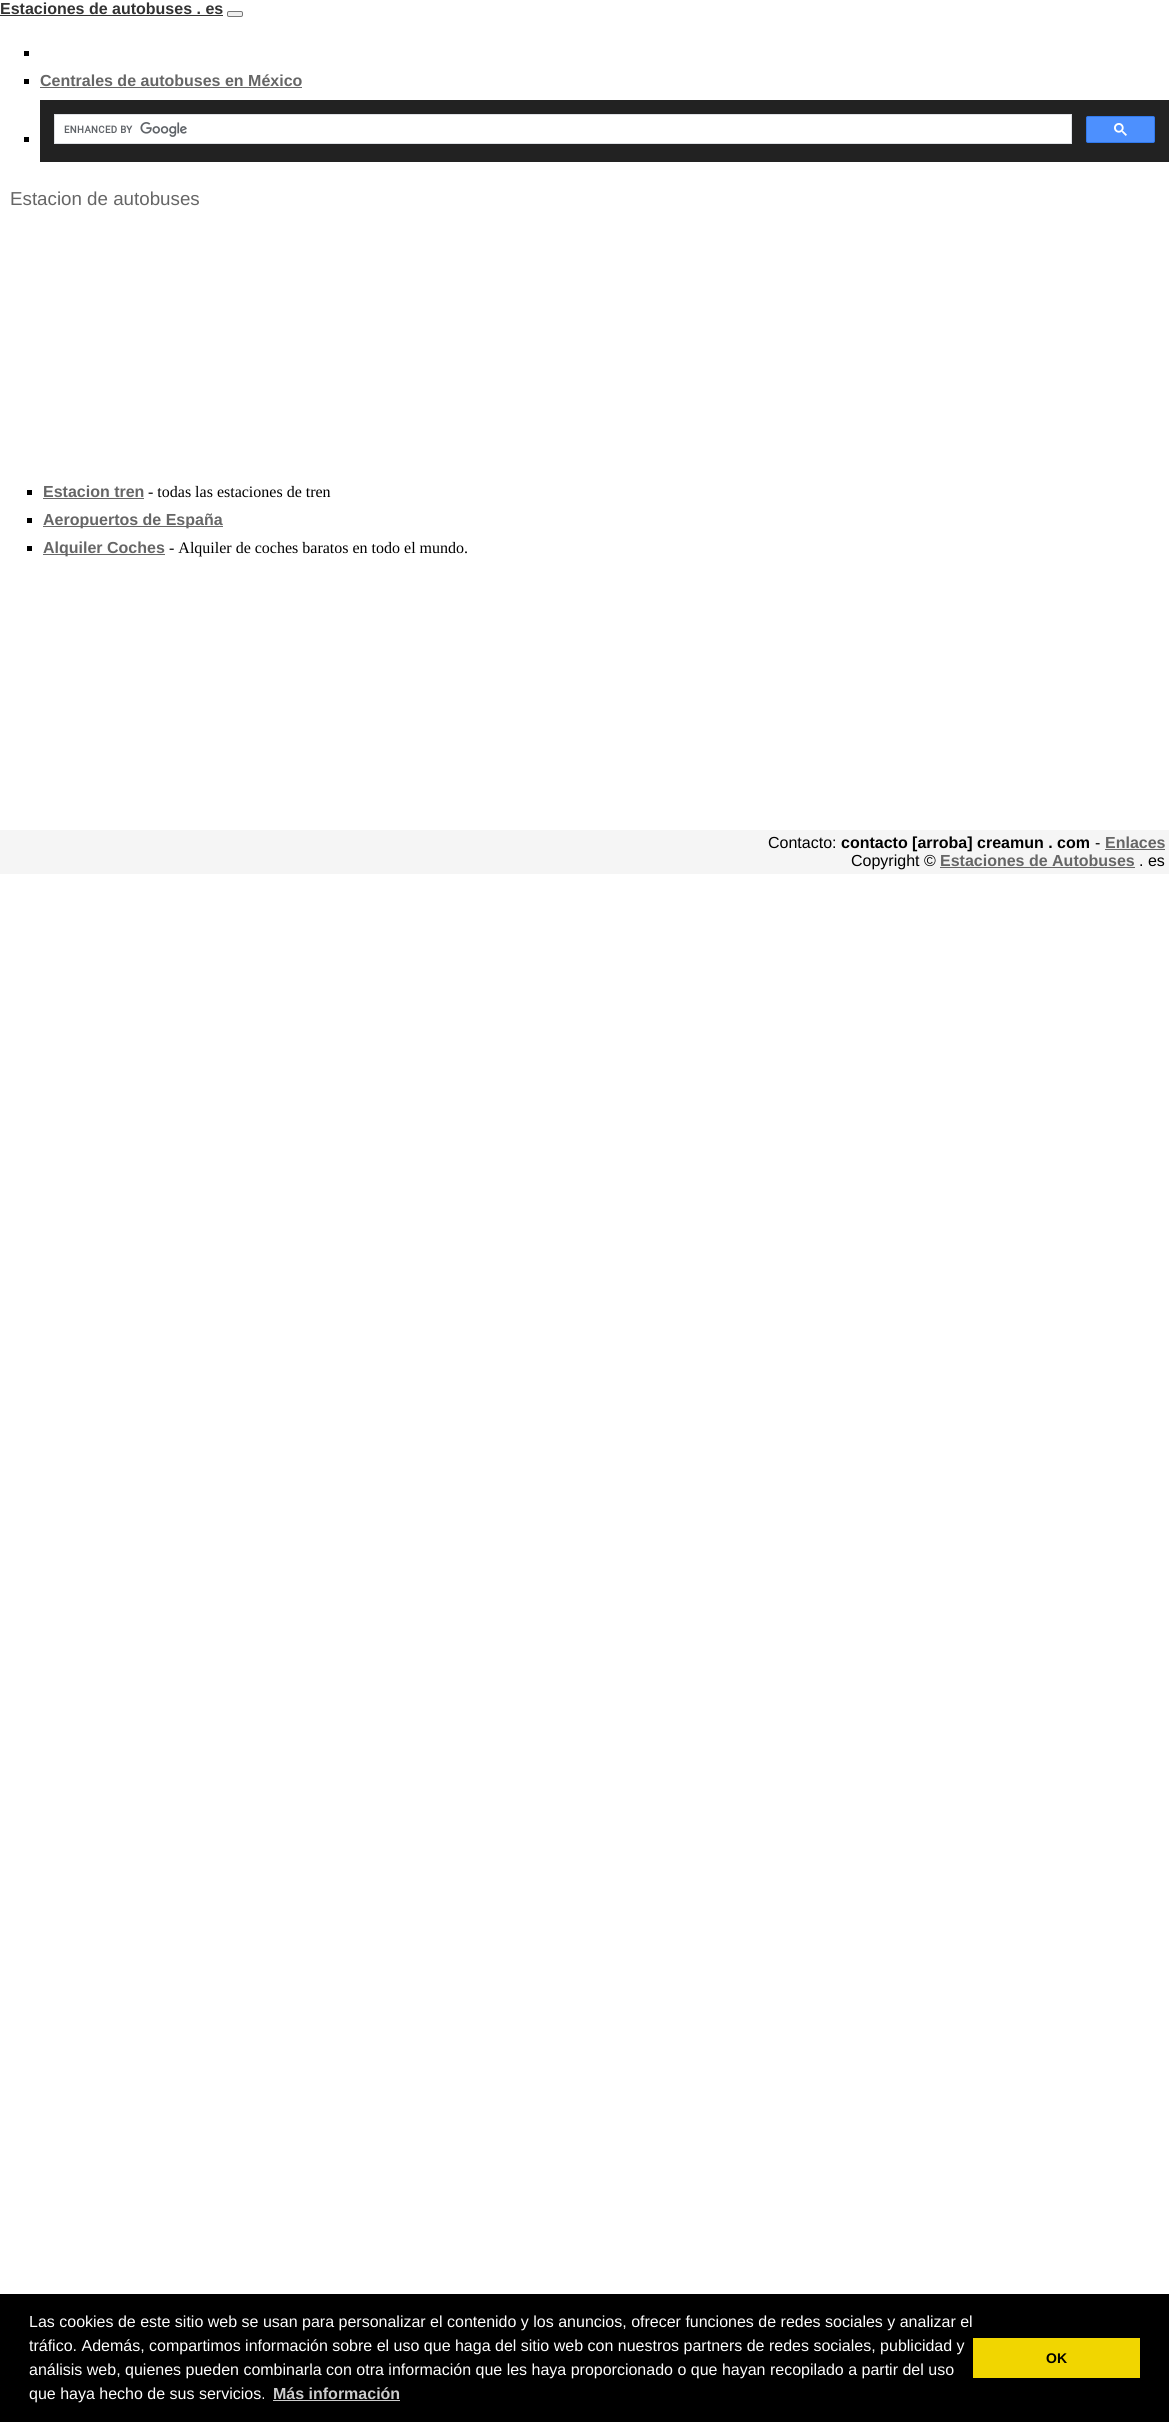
import math
import cairo

surface = cairo.ImageSurface(cairo.FORMAT_RGB24, 1169, 2422)
ctx = cairo.Context(surface)
options = cairo.FontOptions()
options.set_hint_metrics(cairo.HINT_METRICS_OFF)
options.set_hint_style(cairo.HINT_STYLE_NONE)
ctx.set_font_options(options)
ctx.set_miter_limit(4)


def set_color(code):
    ctx.set_source_rgb(*(v / 255 for v in bytes.fromhex(code[-6:])))


def draw_text(x, y, s, family, size, color, bold=False, italic=False):
    ctx.select_font_face(family, cairo.FONT_SLANT_ITALIC if italic else cairo.FONT_SLANT_NORMAL, cairo.FONT_WEIGHT_BOLD if bold else cairo.FONT_WEIGHT_NORMAL)
    ctx.set_font_size(size)
    set_color(color)
    ctx.move_to(x, y)
    ctx.show_text(s)


def fill_rect(x, y, w, h, color):
    set_color(color)
    ctx.rectangle(x, y, w, h)
    ctx.fill()


def rounded_rect(x, y, w, h, r):
    ctx.new_sub_path()
    for i, (u, v) in enumerate([(x + w - r, y + h - r), (x + r, y + h - r), (x + r, y + r), (x + w - r, y + r)]):
        ctx.arc(u, v, r, i * math.pi / 2, (i + 1) * math.pi / 2)
    ctx.close_path()


def draw_image(path, x, y, w, h):
    ctx.save()
    ctx.set_source_surface(cairo.ImageSurface.create_from_png(path), x, y)
    ctx.rectangle(x, y, w, h)
    ctx.fill()
    ctx.restore()


set_color("#ffffff")
ctx.paint()
draw_text(0, 14, "Estaciones de autobuses . es", "Liberation Sans", 16, "#333333", bold=True)
fill_rect(0, 15, 223, 1, "#333333")
set_color("#efefef")
rounded_rect(227.5, 11.5, 15, 5, 1.5)
ctx.fill_preserve()
set_color("#767676")
ctx.set_line_width(1)
ctx.stroke()
fill_rect(24, 51, 5, 5, "#000000")
fill_rect(24, 79, 5, 5, "#000000")
draw_text(40, 86, "Centrales de autobuses en México", "Liberation Sans", 16, "#666666", bold=True)
fill_rect(40, 87, 262, 1, "#666666")
fill_rect(24, 137, 5, 5, "#000000")
fill_rect(40, 100, 1129, 62, "#222222")
set_color("#ffffff")
ctx.rectangle(54.5, 114.5, 1017, 29)
ctx.fill_preserve()
set_color("#dfe1e5")
ctx.stroke()
draw_image("assets/img1.png", 64, 122, 123, 15)
set_color("#4d90fe")
rounded_rect(1086.5, 116.5, 68, 26, 1.5)
ctx.fill_preserve()
set_color("#3079ed")
ctx.stroke()
draw_image("assets/img2.png", 1114, 123, 13, 13)
draw_text(10, 205, "Estacion de autobuses", "Liberation Sans", 18.75, "#666666")
fill_rect(27, 490, 5, 5, "#000000")
draw_text(43, 497, "Estacion tren", "Liberation Sans", 16, "#666666", bold=True)
fill_rect(43, 498, 101, 1, "#666666")
draw_text(148, 497, "- todas las estaciones de tren", "Liberation Serif", 16, "#000000")
fill_rect(27, 518, 5, 5, "#000000")
fill_rect(43, 526, 180, 1, "#666666")
draw_text(43, 525, "Aeropuertos de España", "Liberation Sans", 16, "#666666", bold=True)
fill_rect(27, 546, 5, 5, "#000000")
fill_rect(43, 554, 122, 1, "#666666")
draw_text(43, 553, "Alquiler Coches", "Liberation Sans", 16, "#666666", bold=True)
draw_text(169, 553, "- Alquiler de coches baratos en todo el mundo.", "Liberation Serif", 16, "#000000")
fill_rect(0, 830, 1169, 44, "#f5f5f5")
draw_text(768, 848, "Contacto:", "Liberation Sans", 16, "#000000")
draw_text(841, 848, "contacto [arroba] creamun . com", "Liberation Sans", 16, "#000000", bold=True)
draw_text(1095, 848, "-", "Liberation Sans", 16, "#000000")
draw_text(1105, 848, "Enlaces", "Liberation Sans", 16, "#666666", bold=True)
fill_rect(1105, 849, 60, 1, "#666666")
draw_text(851, 866, "Copyright ©", "Liberation Sans", 16, "#000000")
draw_text(940, 866, "Estaciones de Autobuses", "Liberation Sans", 16, "#666666", bold=True)
fill_rect(940, 867, 195, 1, "#666666")
draw_text(1139, 866, ". es", "Liberation Sans", 16, "#000000")
fill_rect(0, 2294, 1169, 128, "#000000")
draw_text(29, 2327, "Las cookies de este sitio web se usan para personalizar el contenido y los anuncios, ofrecer funciones de redes sociales y analizar el", "Liberation Sans", 16, "#ffffff")
draw_text(29, 2351, "tráfico. Además, compartimos información sobre el uso que haga del sitio web con nuestros partners de redes sociales, publicidad y", "Liberation Sans", 16, "#ffffff")
draw_text(29, 2375, "análisis web, quienes pueden combinarla con otra información que les haya proporcionado o que hayan recopilado a partir del uso", "Liberation Sans", 16, "#ffffff")
draw_text(29, 2399, "que haya hecho de sus servicios.", "Liberation Sans", 16, "#ffffff")
draw_text(273, 2399, "Más información", "Liberation Sans", 16, "#cccccc", bold=True)
fill_rect(273, 2400, 127, 1, "#cccccc")
fill_rect(973, 2338, 167, 40, "#f1d600")
draw_text(1046, 2363, "OK", "Liberation Sans", 14, "#000000", bold=True)
surface.write_to_png("output.png")
